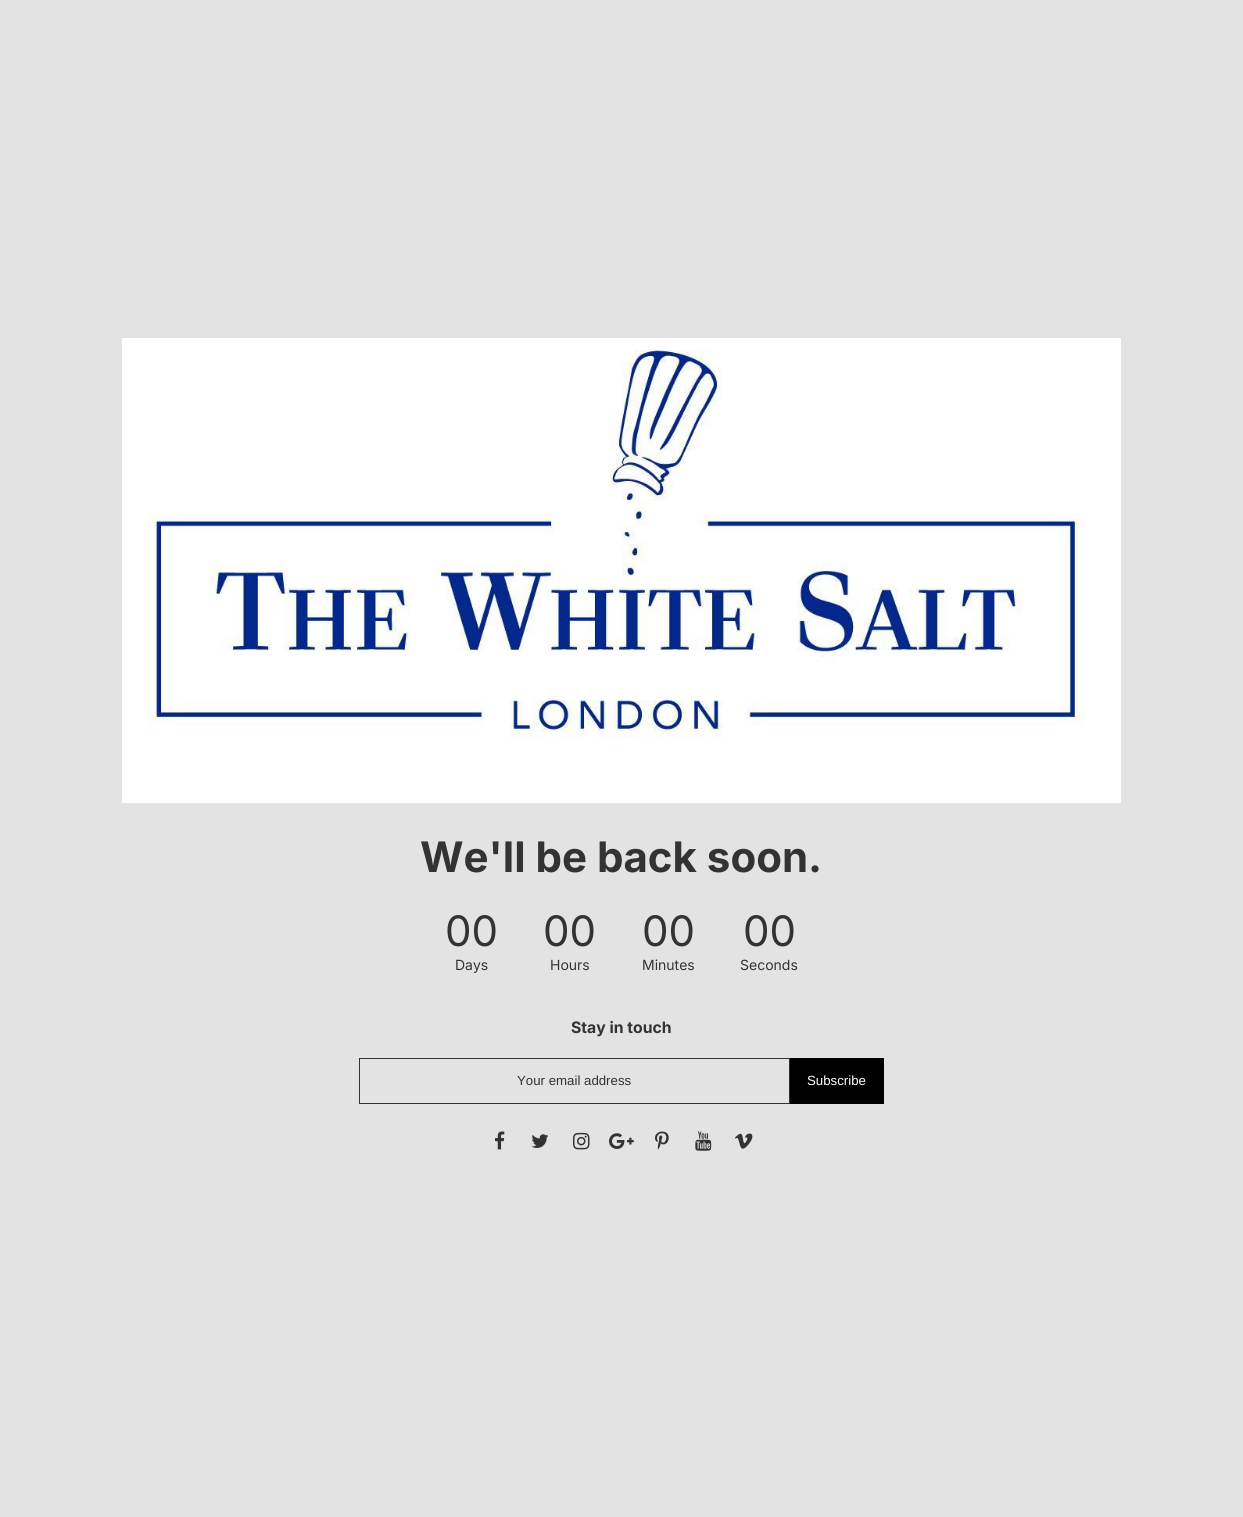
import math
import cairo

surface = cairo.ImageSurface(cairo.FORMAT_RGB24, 1243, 1517)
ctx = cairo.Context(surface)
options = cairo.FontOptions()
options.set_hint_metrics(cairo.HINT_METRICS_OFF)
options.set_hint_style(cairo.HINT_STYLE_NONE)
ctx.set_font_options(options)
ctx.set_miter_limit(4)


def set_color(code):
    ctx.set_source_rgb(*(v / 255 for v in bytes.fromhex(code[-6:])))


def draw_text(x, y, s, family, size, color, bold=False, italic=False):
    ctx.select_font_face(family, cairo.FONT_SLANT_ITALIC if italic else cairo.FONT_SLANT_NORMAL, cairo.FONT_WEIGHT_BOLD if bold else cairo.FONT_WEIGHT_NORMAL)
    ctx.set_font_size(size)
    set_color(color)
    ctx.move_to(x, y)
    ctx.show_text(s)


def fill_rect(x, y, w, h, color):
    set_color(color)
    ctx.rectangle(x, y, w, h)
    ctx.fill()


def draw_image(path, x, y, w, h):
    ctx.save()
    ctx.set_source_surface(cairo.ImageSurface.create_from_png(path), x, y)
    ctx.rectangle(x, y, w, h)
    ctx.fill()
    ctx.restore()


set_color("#e3e3e3")
ctx.paint()
draw_image("assets/img1.png", 122, 338, 999, 465)
draw_text(420, 872, "We'll be back soon.", "Inter", 42, "#333333", bold=True)
draw_text(445, 946, "00", "Inter", 42, "#333333")
draw_text(455, 970, "Days", "Inter", 14, "#333333")
draw_text(543, 946, "00", "Inter", 42, "#333333")
draw_text(550, 970, "Hours", "Inter", 14, "#333333")
draw_text(642, 946, "00", "Inter", 42, "#333333")
draw_text(642, 970, "Minutes", "Inter", 14, "#333333")
draw_text(743, 946, "00", "Inter", 42, "#333333")
draw_text(740, 970, "Seconds", "Inter", 14, "#333333")
draw_text(571, 1033, "Stay in touch", "Inter", 15.75, "#333333", bold=True)
ctx.rectangle(359.5, 1058.5, 430, 45)
ctx.set_line_width(1)
ctx.stroke()
draw_text(517, 1085, "Your email address", "Liberation Sans", 13.25, "#333333")
fill_rect(790, 1058, 94, 46, "#000000")
draw_text(807, 1085, "Subscribe", "Liberation Sans", 13.25, "#ffffff")
draw_image("assets/img2.png", 495, 1131, 10, 19)
draw_image("assets/img3.png", 531, 1134, 18, 14)
draw_image("assets/img4.png", 573, 1132, 17, 18)
draw_image("assets/img5.png", 609, 1133, 25, 16)
draw_image("assets/img6.png", 655, 1131, 14, 19)
draw_image("assets/img7.png", 695, 1131, 17, 20)
draw_image("assets/img8.png", 735, 1133, 18, 16)
surface.write_to_png("output.png")
